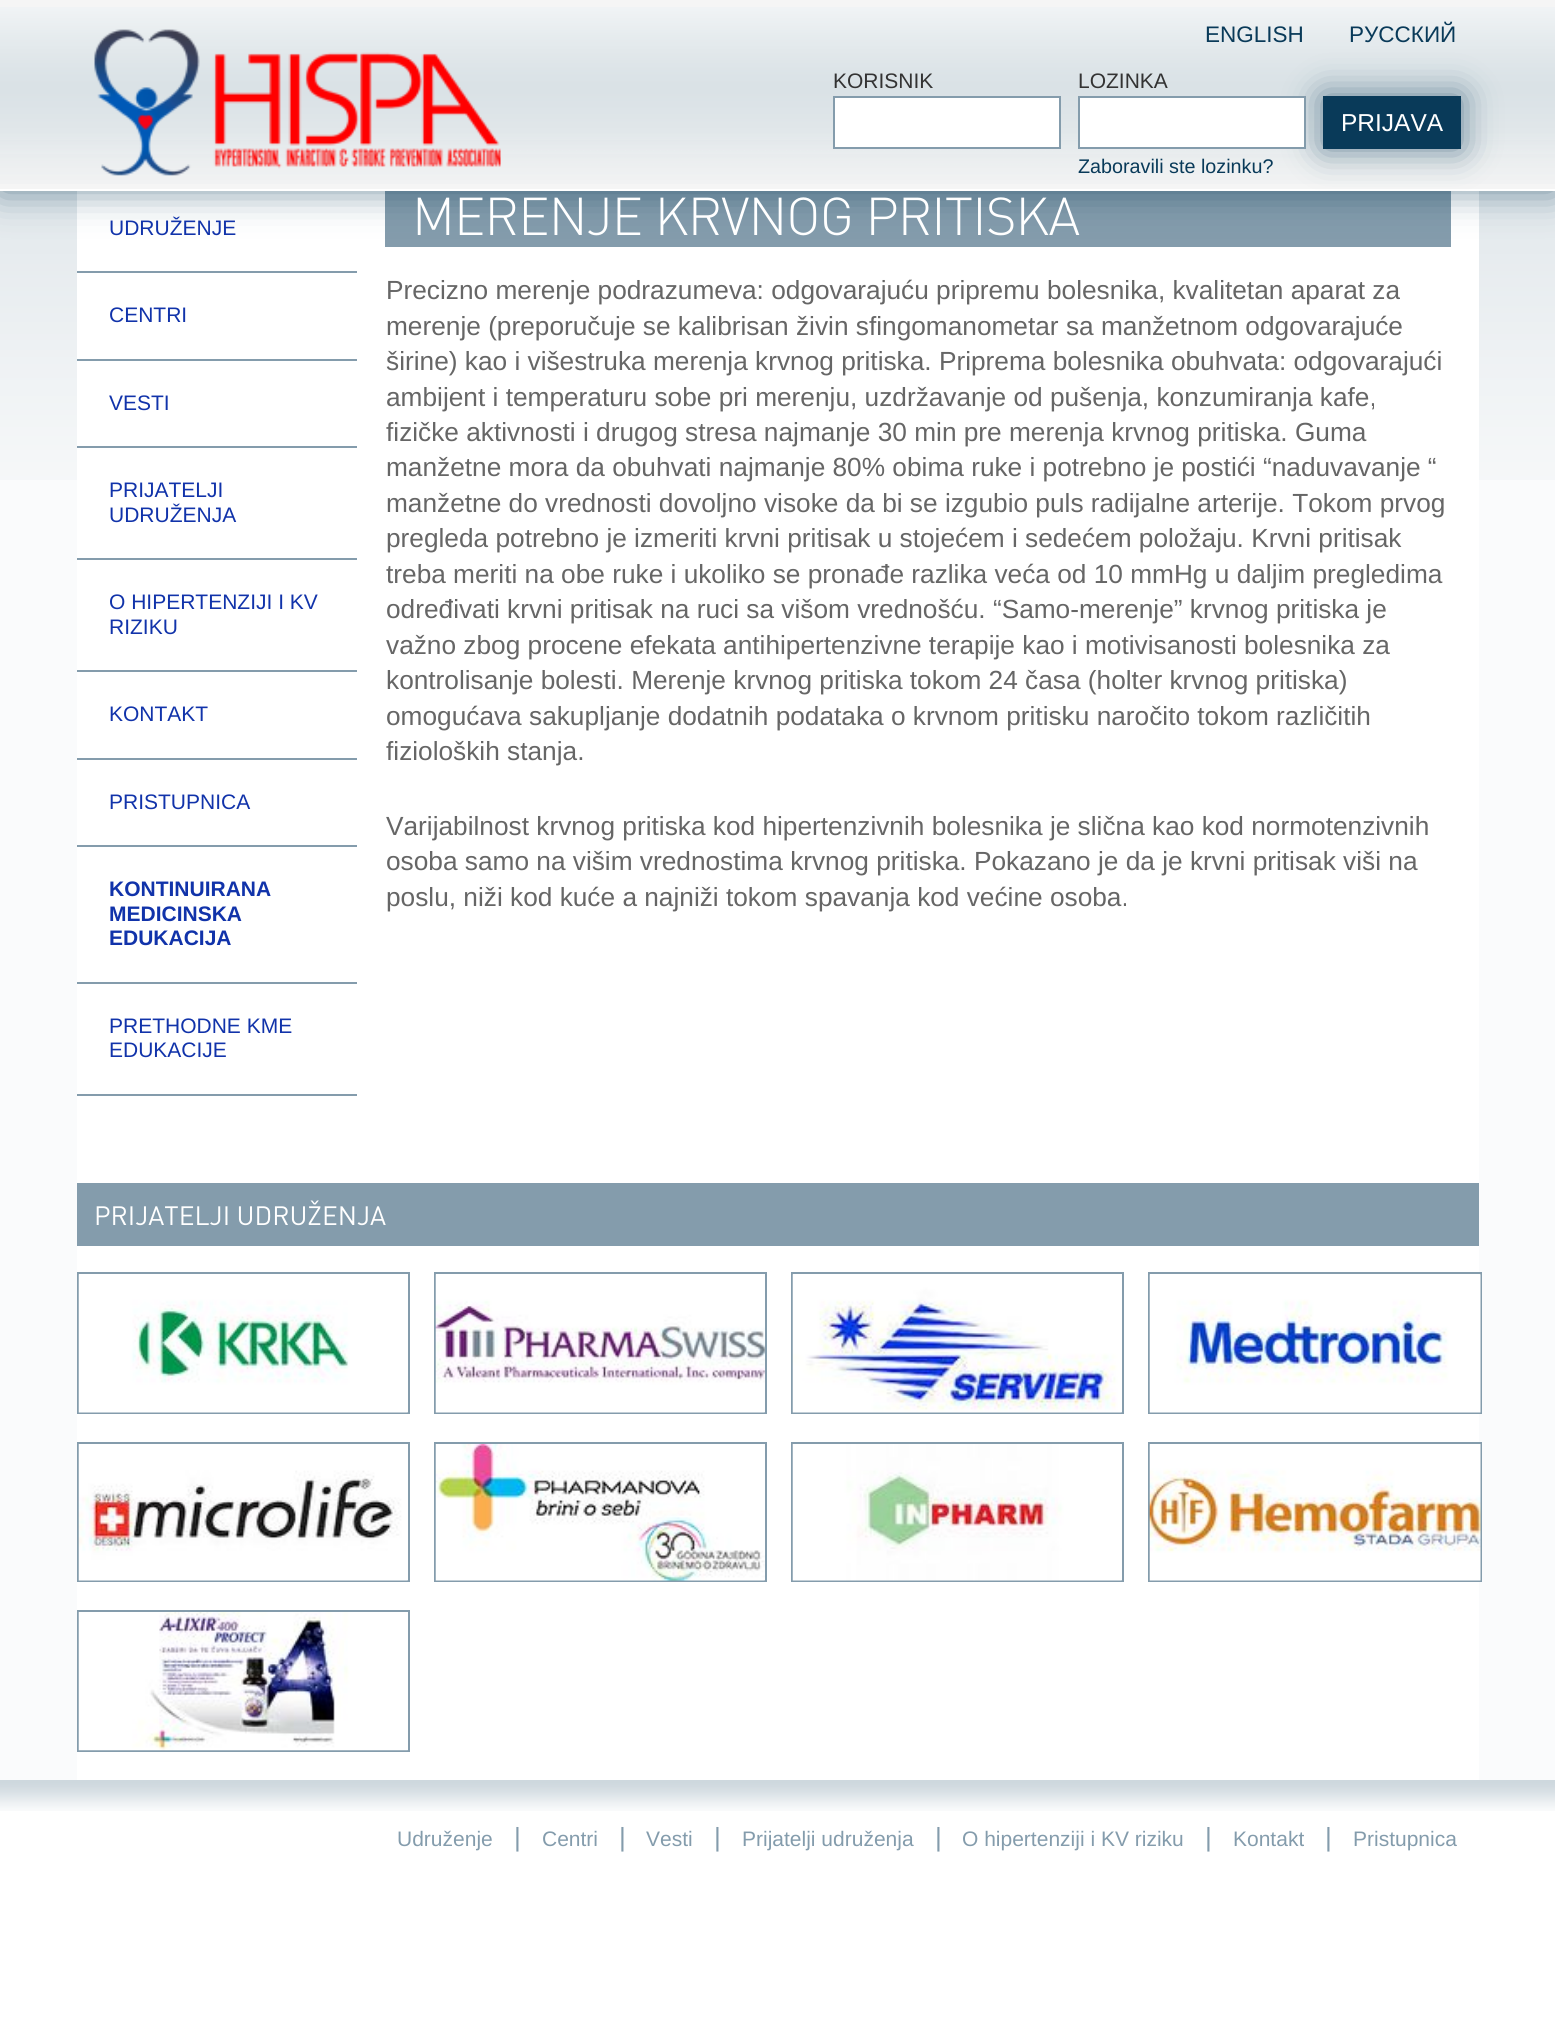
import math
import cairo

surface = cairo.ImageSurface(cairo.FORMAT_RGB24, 1555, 2018)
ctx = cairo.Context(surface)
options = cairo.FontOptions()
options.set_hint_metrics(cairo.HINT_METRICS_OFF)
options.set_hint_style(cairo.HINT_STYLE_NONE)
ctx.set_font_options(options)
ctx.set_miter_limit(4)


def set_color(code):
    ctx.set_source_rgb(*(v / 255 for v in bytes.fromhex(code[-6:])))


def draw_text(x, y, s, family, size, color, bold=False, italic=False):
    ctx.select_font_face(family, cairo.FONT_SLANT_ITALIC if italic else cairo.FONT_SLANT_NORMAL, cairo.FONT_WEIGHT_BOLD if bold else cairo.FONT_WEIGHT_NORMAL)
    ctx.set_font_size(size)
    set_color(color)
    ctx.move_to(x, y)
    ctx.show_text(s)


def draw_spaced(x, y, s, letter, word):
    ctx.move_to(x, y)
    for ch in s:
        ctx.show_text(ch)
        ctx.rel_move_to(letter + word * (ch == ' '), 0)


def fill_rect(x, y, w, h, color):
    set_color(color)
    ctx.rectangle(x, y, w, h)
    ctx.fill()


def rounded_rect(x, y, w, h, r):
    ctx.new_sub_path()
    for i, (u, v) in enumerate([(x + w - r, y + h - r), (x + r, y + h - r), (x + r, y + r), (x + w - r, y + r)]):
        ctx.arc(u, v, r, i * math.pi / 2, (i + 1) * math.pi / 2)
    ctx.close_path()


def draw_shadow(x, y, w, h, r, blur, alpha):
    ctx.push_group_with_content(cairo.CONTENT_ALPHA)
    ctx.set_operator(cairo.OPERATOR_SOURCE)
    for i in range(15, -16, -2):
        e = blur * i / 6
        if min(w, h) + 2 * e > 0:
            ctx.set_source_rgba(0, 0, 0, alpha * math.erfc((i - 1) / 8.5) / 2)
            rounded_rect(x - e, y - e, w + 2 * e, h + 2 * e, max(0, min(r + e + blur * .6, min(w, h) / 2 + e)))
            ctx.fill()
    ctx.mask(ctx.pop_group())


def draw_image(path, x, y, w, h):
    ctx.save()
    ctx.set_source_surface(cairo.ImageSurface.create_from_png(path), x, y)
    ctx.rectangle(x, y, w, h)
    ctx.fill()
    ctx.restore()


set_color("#fafbfc")
ctx.paint()
draw_image("assets/img3.png", 0, 191, 1555, 289)
fill_rect(77, 191, 1402, 1589, "#ffffff")
fill_rect(385, 191, 1066, 56, "#849cac")
set_color("#093a59")
draw_shadow(0, 0, 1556, 191, 0, 19, 0.55)
fill_rect(0, 0, 1555, 189, "#f5f5f5")
draw_image("assets/img1.png", 0, 7, 1555, 177)
fill_rect(0, 189, 1555, 2, "#ffffff")
draw_image("assets/img2.png", 94, 29, 407, 147)
draw_text(1205, 42, "ENGLISH", "Liberation Sans", 22.5, "#093a59")
draw_text(1349, 42, "PУССКИЙ", "Liberation Sans", 22.5, "#093a59")
draw_text(833, 88, "KORISNIK", "Liberation Sans", 21, "#333333")
set_color("#ffffff")
ctx.rectangle(834, 97, 226, 51)
ctx.fill_preserve()
set_color("#849cac")
ctx.stroke()
draw_text(1078, 88, "LOZINKA", "Liberation Sans", 21, "#333333")
set_color("#093a59")
draw_shadow(1323, 96, 138, 53, 0, 17.5, 0.6)
set_color("#ffffff")
ctx.rectangle(1079, 97, 226, 51)
ctx.fill_preserve()
set_color("#849cac")
ctx.stroke()
draw_text(1078, 173, "Zaboravili ste lozinku?", "Liberation Sans", 19.75, "#093a59")
fill_rect(1323, 96, 138, 53, "#093a59")
draw_text(1341, 131, "PRIJAVA", "Liberation Sans", 24.5, "#ffffff")
fill_rect(77, 1094, 280, 2, "#849cac")
draw_text(109, 235, "UDRUŽENJE", "Liberation Sans", 21, "#1133aa")
fill_rect(77, 271, 280, 2, "#849cac")
draw_text(109, 322, "CENTRI", "Liberation Sans", 21, "#1133aa")
fill_rect(77, 359, 280, 2, "#849cac")
draw_text(109, 410, "VESTI", "Liberation Sans", 21, "#1133aa")
fill_rect(77, 446, 280, 2, "#849cac")
draw_text(109, 497, "PRIJATELJI", "Liberation Sans", 21, "#1133aa")
draw_text(109, 522, "UDRUŽENJA", "Liberation Sans", 21, "#1133aa")
fill_rect(77, 558, 280, 2, "#849cac")
draw_text(109, 609, "O HIPERTENZIJI I KV", "Liberation Sans", 21, "#1133aa")
draw_text(109, 634, "RIZIKU", "Liberation Sans", 21, "#1133aa")
fill_rect(77, 670, 280, 2, "#849cac")
draw_text(109, 721, "KONTAKT", "Liberation Sans", 21, "#1133aa")
fill_rect(77, 758, 280, 2, "#849cac")
draw_text(109, 809, "PRISTUPNICA", "Liberation Sans", 21, "#1133aa")
fill_rect(77, 845, 280, 2, "#849cac")
draw_text(109, 896, "KONTINUIRANA", "Liberation Sans", 21, "#1133aa", bold=True)
draw_text(109, 921, "MEDICINSKA", "Liberation Sans", 21, "#1133aa", bold=True)
draw_text(109, 945, "EDUKACIJA", "Liberation Sans", 21, "#1133aa", bold=True)
fill_rect(77, 982, 280, 2, "#849cac")
draw_text(109, 1033, "PRETHODNE KME", "Liberation Sans", 21, "#1133aa")
draw_text(109, 1057, "EDUKACIJE", "Liberation Sans", 21, "#1133aa")
ctx.select_font_face("DIN Light")
ctx.set_font_size(52.5)
set_color("#ffffff")
draw_spaced(412, 235, "MERENJE KRVNOG PRITISKA", -0.9, 0)
draw_text(386, 299, "Precizno merenje podrazumeva: odgovarajuću pripremu bolesnika, kvalitetan aparat za", "Liberation Sans", 26.25, "#666666")
draw_text(386, 335, "merenje (preporučuje se kalibrisan živin sfingomanometar sa manžetnom odgovarajuće", "Liberation Sans", 26.25, "#666666")
draw_text(386, 370, "širine) kao i višestruka merenja krvnog pritiska. Priprema bolesnika obuhvata: odgovarajući", "Liberation Sans", 26.25, "#666666")
draw_text(386, 406, "ambijent i temperaturu sobe pri merenju, uzdržavanje od pušenja, konzumiranja kafe,", "Liberation Sans", 26.25, "#666666")
draw_text(386, 441, "fizičke aktivnosti i drugog stresa najmanje 30 min pre merenja krvnog pritiska. Guma", "Liberation Sans", 26.25, "#666666")
draw_text(386, 476, "manžetne mora da obuhvati najmanje 80% obima ruke i potrebno je postići “naduvavanje “", "Liberation Sans", 26.25, "#666666")
draw_text(386, 512, "manžetne do vrednosti dovoljno visoke da bi se izgubio puls radijalne arterije. Tokom prvog", "Liberation Sans", 26.25, "#666666")
draw_text(386, 547, "pregleda potrebno je izmeriti krvni pritisak u stojećem i sedećem položaju. Krvni pritisak", "Liberation Sans", 26.25, "#666666")
draw_text(386, 583, "treba meriti na obe ruke i ukoliko se pronađe razlika veća od 10 mmHg u daljim pregledima", "Liberation Sans", 26.25, "#666666")
draw_text(386, 618, "određivati krvni pritisak na ruci sa višom vrednošću. “Samo-merenje” krvnog pritiska je", "Liberation Sans", 26.25, "#666666")
draw_text(386, 654, "važno zbog procene efekata antihipertenzivne terapije kao i motivisanosti bolesnika za", "Liberation Sans", 26.25, "#666666")
draw_text(386, 689, "kontrolisanje bolesti. Merenje krvnog pritiska tokom 24 časa (holter krvnog pritiska)", "Liberation Sans", 26.25, "#666666")
draw_text(386, 725, "omogućava sakupljanje dodatnih podataka o krvnom pritisku naročito tokom različitih", "Liberation Sans", 26.25, "#666666")
draw_text(386, 760, "fizioloških stanja.", "Liberation Sans", 26.25, "#666666")
draw_text(386, 835, "Varijabilnost krvnog pritiska kod hipertenzivnih bolesnika je slična kao kod normotenzivnih", "Liberation Sans", 26.25, "#666666")
draw_text(386, 870, "osoba samo na višim vrednostima krvnog pritiska. Pokazano je da je krvni pritisak viši na", "Liberation Sans", 26.25, "#666666")
draw_text(386, 906, "poslu, niži kod kuće a najniži tokom spavanja kod većine osoba.", "Liberation Sans", 26.25, "#666666")
fill_rect(77, 1183, 1402, 63, "#849cac")
draw_text(94, 1225, "PRIJATELJI UDRUŽENJA", "DIN", 26.25, "#ffffff")
ctx.rectangle(78, 1273, 331, 140)
set_color("#849cac")
ctx.stroke()
draw_image("assets/img4.png", 78, 1274, 330, 139)
ctx.rectangle(435, 1273, 331, 140)
ctx.stroke()
draw_image("assets/img5.png", 435, 1274, 330, 139)
ctx.rectangle(792, 1273, 331, 140)
ctx.stroke()
draw_image("assets/img6.png", 792, 1274, 330, 139)
ctx.rectangle(1149, 1273, 332, 140)
ctx.stroke()
draw_image("assets/img7.png", 1149, 1274, 332, 139)
ctx.rectangle(78, 1443, 331, 138)
ctx.stroke()
draw_image("assets/img8.png", 78, 1444, 330, 137)
ctx.rectangle(435, 1443, 331, 138)
ctx.stroke()
draw_image("assets/img9.png", 435, 1444, 330, 137)
ctx.rectangle(792, 1443, 331, 138)
ctx.stroke()
draw_image("assets/img10.png", 792, 1444, 330, 137)
ctx.rectangle(1149, 1443, 332, 138)
ctx.stroke()
draw_image("assets/img11.png", 1149, 1444, 332, 137)
ctx.rectangle(78, 1611, 331, 140)
ctx.stroke()
draw_image("assets/img12.png", 78, 1612, 330, 139)
fill_rect(0, 1811, 1555, 207, "#ffffff")
draw_image("assets/img13.png", 0, 1780, 1555, 31)
draw_text(397, 1846, "Udruženje", "Liberation Sans", 21, "#849cac")
draw_text(514, 1846, "|", "Liberation Sans", 26.25, "#849cac")
draw_text(542, 1846, "Centri", "Liberation Sans", 21, "#849cac")
draw_text(619, 1846, "|", "Liberation Sans", 26.25, "#849cac")
draw_text(646, 1846, "Vesti", "Liberation Sans", 21, "#849cac")
draw_text(714, 1846, "|", "Liberation Sans", 26.25, "#849cac")
draw_text(742, 1846, "Prijatelji udruženja", "Liberation Sans", 21, "#849cac")
draw_text(935, 1846, "|", "Liberation Sans", 26.25, "#849cac")
draw_text(962, 1846, "O hipertenziji i KV riziku", "Liberation Sans", 21, "#849cac")
draw_text(1205, 1846, "|", "Liberation Sans", 26.25, "#849cac")
draw_text(1233, 1846, "Kontakt", "Liberation Sans", 21, "#849cac")
draw_text(1325, 1846, "|", "Liberation Sans", 26.25, "#849cac")
draw_text(1353, 1846, "Pristupnica", "Liberation Sans", 21, "#849cac")
surface.write_to_png("output.png")
